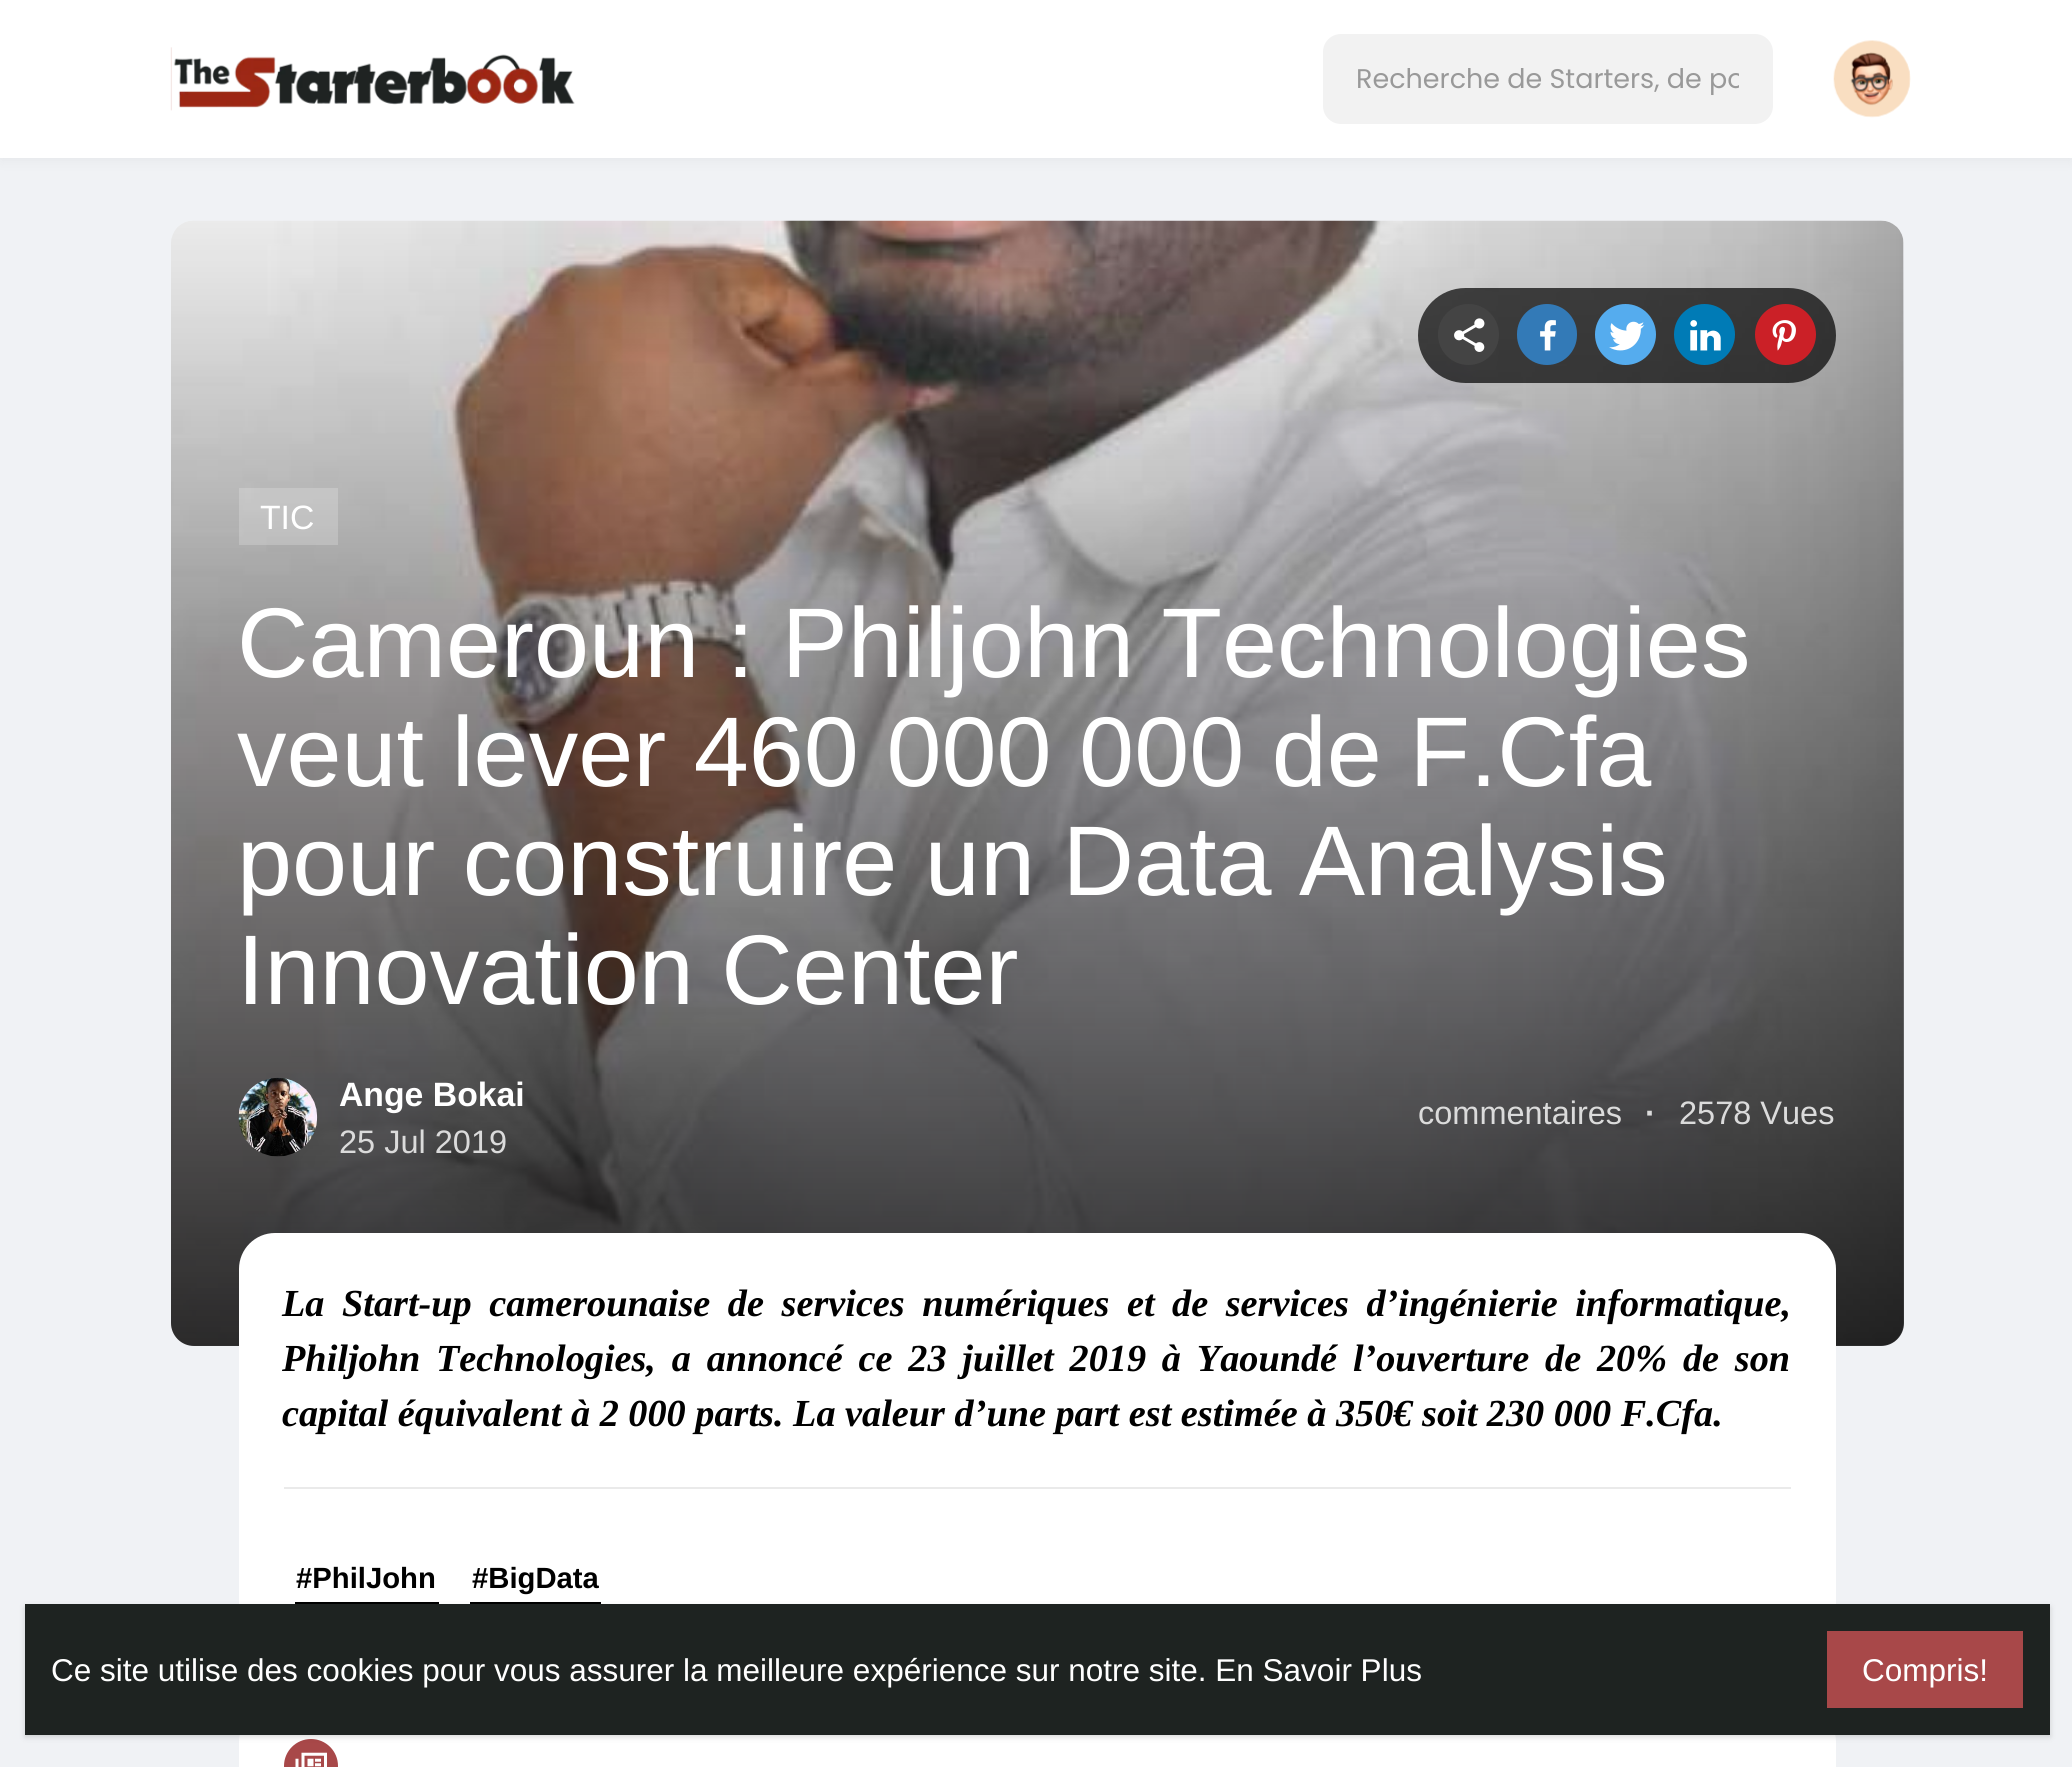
import math
import cairo

surface = cairo.ImageSurface(cairo.FORMAT_RGB24, 2072, 1767)
ctx = cairo.Context(surface)
options = cairo.FontOptions()
options.set_hint_metrics(cairo.HINT_METRICS_OFF)
options.set_hint_style(cairo.HINT_STYLE_NONE)
ctx.set_font_options(options)
ctx.set_miter_limit(4)


def set_color(code):
    ctx.set_source_rgb(*(v / 255 for v in bytes.fromhex(code[-6:])))


def draw_text(x, y, s, family, size, color, bold=False, italic=False):
    ctx.select_font_face(family, cairo.FONT_SLANT_ITALIC if italic else cairo.FONT_SLANT_NORMAL, cairo.FONT_WEIGHT_BOLD if bold else cairo.FONT_WEIGHT_NORMAL)
    ctx.set_font_size(size)
    set_color(color)
    ctx.move_to(x, y)
    ctx.show_text(s)


def draw_spaced(x, y, s, letter, word):
    ctx.move_to(x, y)
    for ch in s:
        ctx.show_text(ch)
        ctx.rel_move_to(letter + word * (ch == ' '), 0)


def fill_rect(x, y, w, h, color):
    set_color(color)
    ctx.rectangle(x, y, w, h)
    ctx.fill()


def rounded_rect(x, y, w, h, r):
    ctx.new_sub_path()
    for i, (u, v) in enumerate([(x + w - r, y + h - r), (x + r, y + h - r), (x + r, y + r), (x + w - r, y + r)]):
        ctx.arc(u, v, r, i * math.pi / 2, (i + 1) * math.pi / 2)
    ctx.close_path()


def draw_shadow(x, y, w, h, r, blur, alpha):
    ctx.push_group_with_content(cairo.CONTENT_ALPHA)
    ctx.set_operator(cairo.OPERATOR_SOURCE)
    for i in range(15, -16, -2):
        e = blur * i / 6
        if min(w, h) + 2 * e > 0:
            ctx.set_source_rgba(0, 0, 0, alpha * math.erfc((i - 1) / 8.5) / 2)
            rounded_rect(x - e, y - e, w + 2 * e, h + 2 * e, max(0, min(r + e + blur * .6, min(w, h) / 2 + e)))
            ctx.fill()
    ctx.mask(ctx.pop_group())


def draw_image(path, x, y, w, h):
    ctx.save()
    ctx.set_source_surface(cairo.ImageSurface.create_from_png(path), x, y)
    ctx.rectangle(x, y, w, h)
    ctx.fill()
    ctx.restore()


set_color("#f0f2f5")
ctx.paint()
set_color("#000000")
draw_shadow(0, 2, 2072, 158, 0, 7, 0.05)
fill_rect(0, 0, 2072, 158, "#ffffff")
draw_image("assets/img1.png", 170, 47, 405, 64)
set_color("#f2f2f2")
rounded_rect(1323, 34, 450, 90, 18)
ctx.fill()
ctx.save()
ctx.rectangle(1357, 59, 382, 40)
ctx.clip()
draw_text(1356, 88, "Recherche de Starters, de po", "Poppins", 27, "#999999")
ctx.restore()
draw_image("assets/img2.png", 1833, 40, 78, 78)
draw_image("assets/img3.png", 171, 220, 1733, 1126)
gradient = cairo.LinearGradient(1037, 220, 1037, 1346)
gradient.add_color_stop_rgba(0, 0, 0, 0, 0)
gradient.add_color_stop_rgba(1, 0, 0, 0, 0.8)
ctx.set_source(gradient)
rounded_rect(171, 221, 1733, 1125, 23)
ctx.fill()
ctx.set_source_rgba(0, 0, 0, 0.7)
rounded_rect(1418, 288, 418, 95, 47.5)
ctx.fill()
set_color("#444444")
ctx.arc(1468.5, 334.5, 30.5, 0, 2 * math.pi)
ctx.fill()
draw_image("assets/img4.png", 1454, 318, 31, 34)
set_color("#337ab7")
rounded_rect(1517, 304, 60, 61, 30)
ctx.fill()
draw_image("assets/img5.png", 1540, 320, 16, 31)
set_color("#55acee")
ctx.arc(1625.5, 334.5, 30.5, 0, 2 * math.pi)
ctx.fill()
draw_image("assets/img6.png", 1609, 321, 36, 30)
set_color("#007bb6")
ctx.arc(1704.5, 334.5, 30.5, 0, 2 * math.pi)
ctx.fill()
draw_image("assets/img7.png", 1690, 320, 31, 31)
set_color("#cb2027")
ctx.arc(1785.5, 334.5, 30.5, 0, 2 * math.pi)
ctx.fill()
draw_image("assets/img8.png", 1772, 320, 24, 31)
ctx.set_source_rgba(1, 1, 1, 0.2)
ctx.rectangle(239, 488, 99, 57)
ctx.fill()
draw_text(260, 529, "TIC", "Liberation Sans", 33.75, "#ffffff")
draw_text(237, 677, "Cameroun : Philjohn Technologies", "Liberation Sans", 99, "#ffffff")
draw_text(237, 786, "veut lever 460 000 000 de F.Cfa", "Liberation Sans", 99, "#ffffff")
draw_text(237, 895, "pour construire un Data Analysis", "Liberation Sans", 99, "#ffffff")
draw_text(237, 1004, "Innovation Center", "Liberation Sans", 99, "#ffffff")
draw_image("assets/img9.png", 238, 1077, 80, 80)
draw_text(339, 1106, "Ange Bokai", "Liberation Sans", 33.75, "#ffffff", bold=True)
draw_text(339, 1153, "25 Jul 2019", "Liberation Sans", 32.5, "#dbdbdb")
draw_text(1418, 1124, "commentaires", "Liberation Sans", 32.5, "#dbdbdb")
draw_text(1645, 1124, "·", "Liberation Sans", 32.5, "#dbdbdb", bold=True)
draw_text(1679, 1124, "2578 Vues", "Liberation Sans", 32.5, "#dbdbdb")
set_color("#ffffff")
rounded_rect(239, 1233, 1597, 428, 36)
ctx.fill()
fill_rect(284, 1487, 1507, 2, "#eaeaea")
ctx.select_font_face("Liberation Serif", cairo.FONT_SLANT_ITALIC, cairo.FONT_WEIGHT_BOLD)
ctx.set_font_size(38.25)
set_color("#000000")
draw_spaced(282, 1316, "La Start-up camerounaise de services numériques et de services d’ingénierie informatique,", 0, 8)
draw_spaced(282, 1371, "Philjohn Technologies, a annoncé ce 23 juillet 2019 à Yaoundé l’ouverture de 20% de son", 0, 6.25)
draw_text(282, 1426, "capital équivalent à 2 000 parts. La valeur d’une part est estimée à 350€ soit 230 000 F.Cfa.", "Liberation Serif", 38.25, "#000000", bold=True, italic=True)
fill_rect(295, 1602, 144, 2, "#000000")
draw_text(296, 1588, "#PhilJohn", "Liberation Sans", 29.25, "#000000", bold=True)
fill_rect(470, 1602, 131, 2, "#000000")
draw_text(472, 1588, "#BigData", "Liberation Sans", 29.25, "#000000", bold=True)
set_color("#ffffff")
rounded_rect(239, 1706, 1597, 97, 36)
ctx.fill()
set_color("#a84849")
ctx.arc(311, 1766, 27, 0, 2 * math.pi)
ctx.fill()
draw_image("assets/img10.png", 295, 1752, 32, 15)
set_color("#000000")
draw_shadow(25, 1607, 2025, 130, 0, 2, 0.06)
draw_shadow(25, 1607, 2025, 130, 0, 3.5, 0.1)
fill_rect(25, 1604, 2025, 131, "#1e2321")
draw_text(51, 1681, "Ce site utilise des cookies pour vous assurer la meilleure expérience sur notre site. En Savoir Plus", "Liberation Sans", 31.5, "#ffffff")
fill_rect(1827, 1631, 196, 77, "#a84849")
draw_text(1862, 1681, "Compris!", "Liberation Sans", 31.5, "#ffffff")
surface.write_to_png("output.png")
